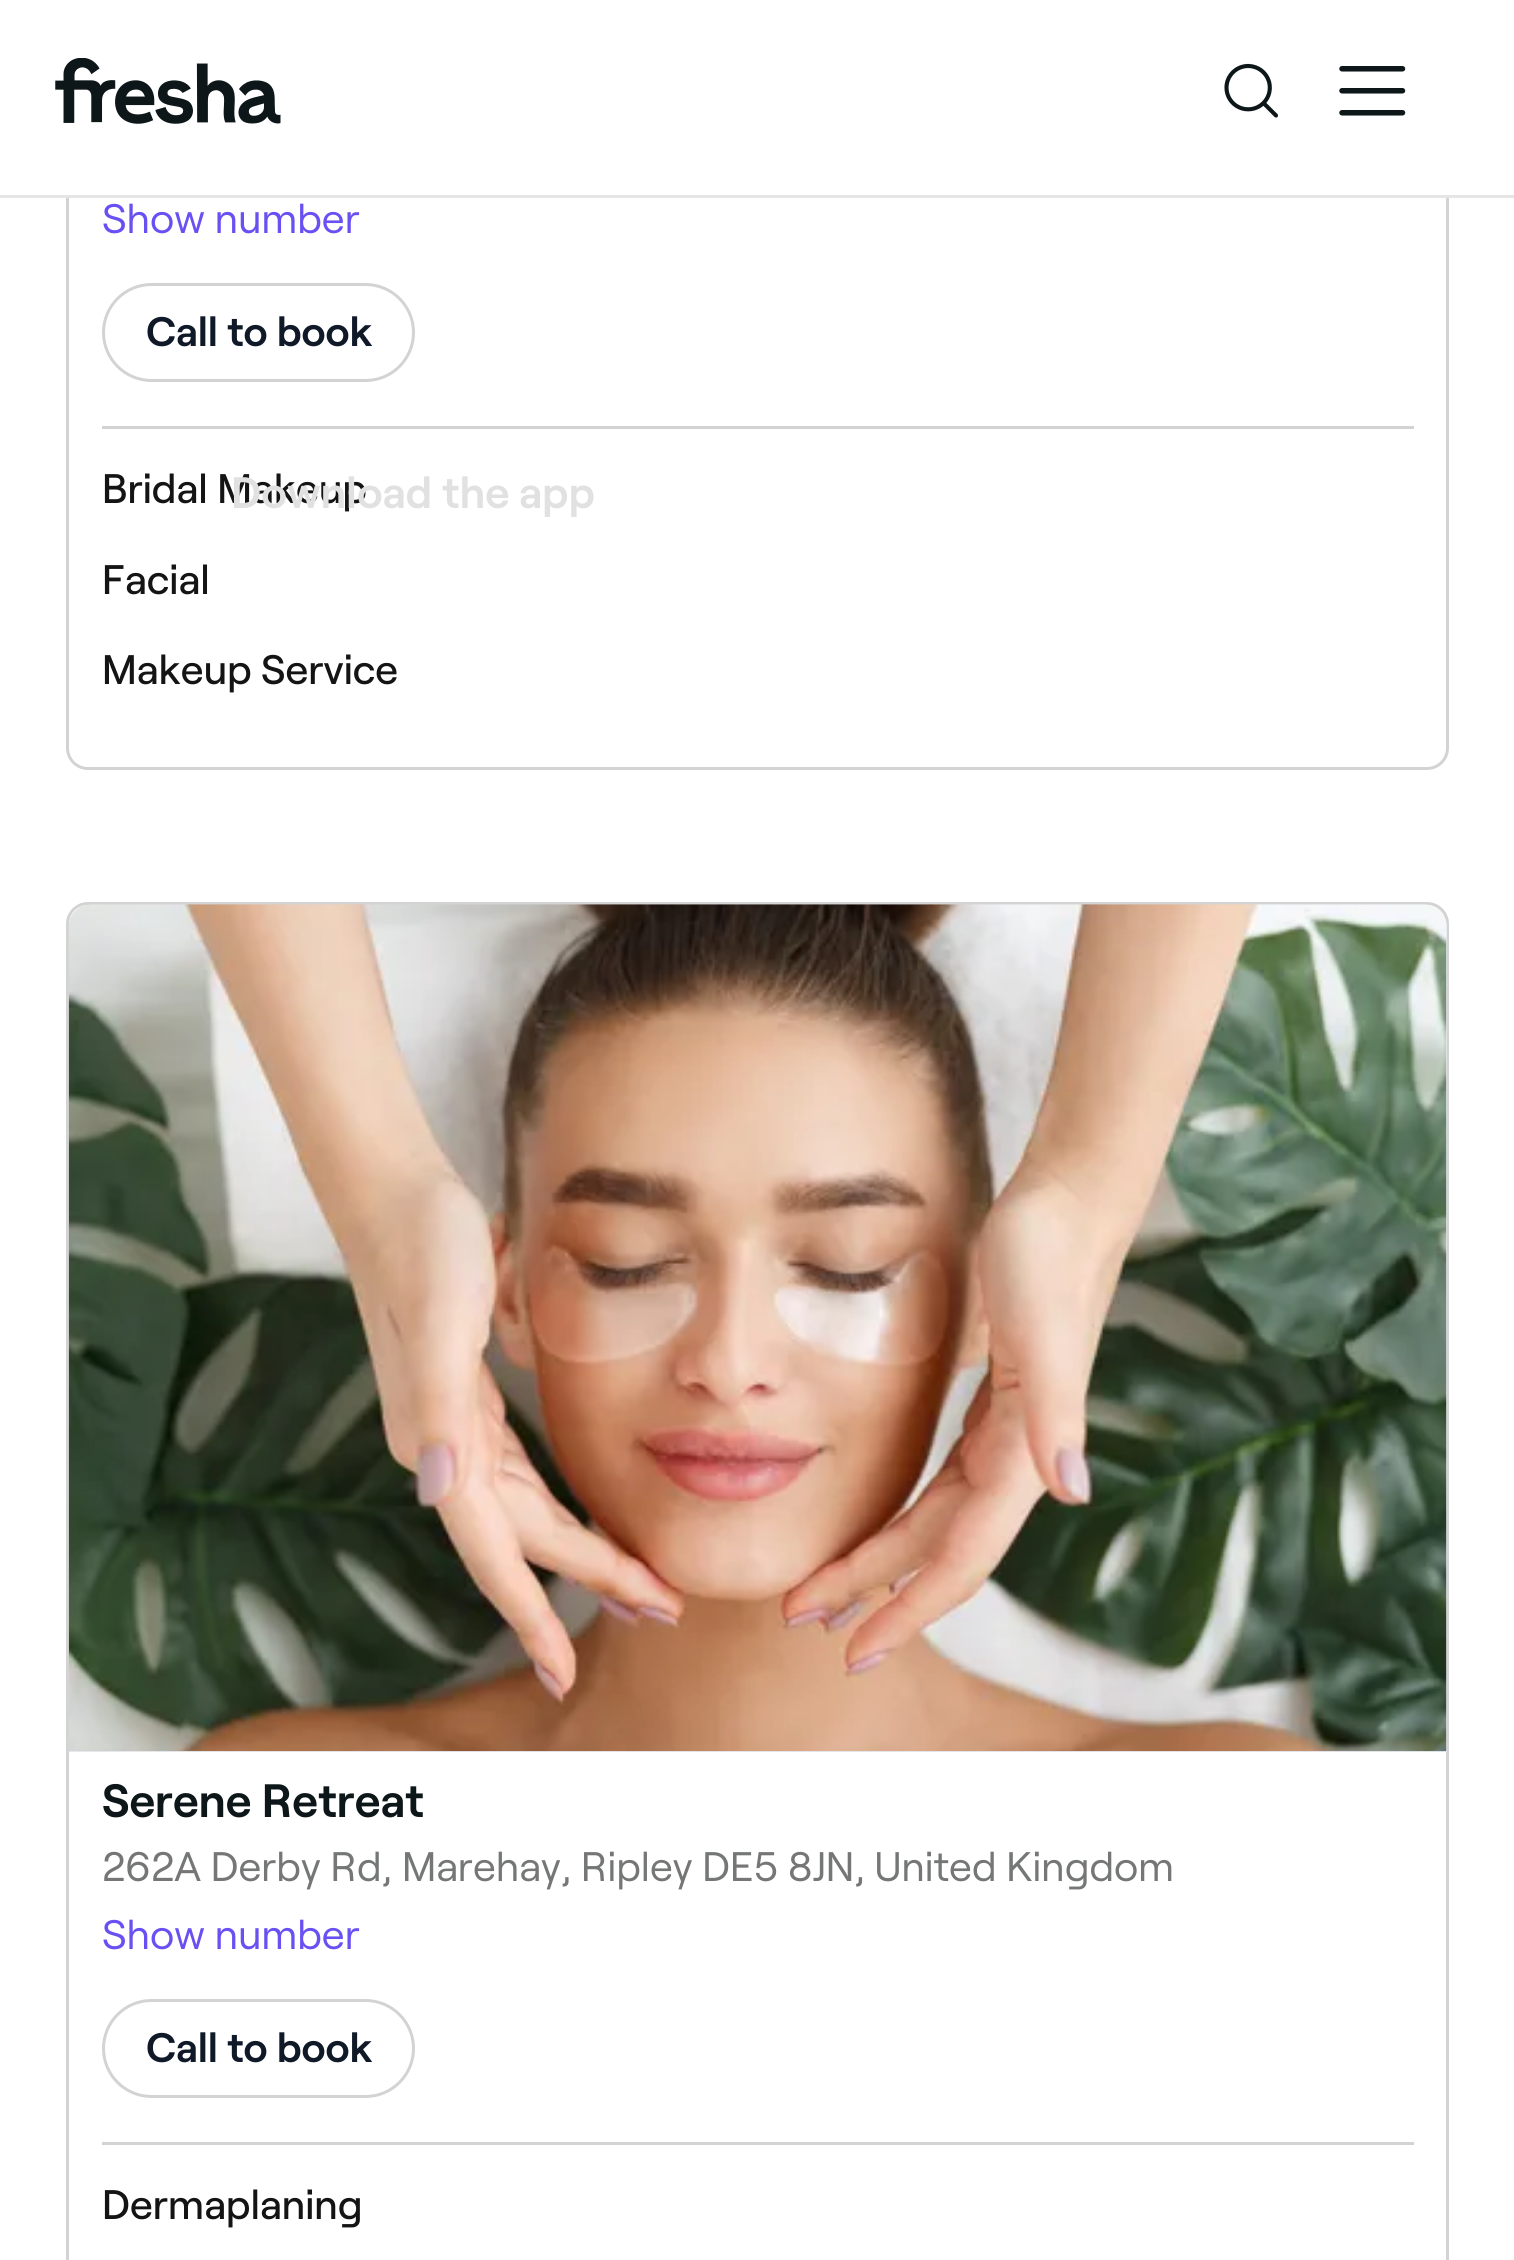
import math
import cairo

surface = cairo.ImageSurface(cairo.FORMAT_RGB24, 1514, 2260)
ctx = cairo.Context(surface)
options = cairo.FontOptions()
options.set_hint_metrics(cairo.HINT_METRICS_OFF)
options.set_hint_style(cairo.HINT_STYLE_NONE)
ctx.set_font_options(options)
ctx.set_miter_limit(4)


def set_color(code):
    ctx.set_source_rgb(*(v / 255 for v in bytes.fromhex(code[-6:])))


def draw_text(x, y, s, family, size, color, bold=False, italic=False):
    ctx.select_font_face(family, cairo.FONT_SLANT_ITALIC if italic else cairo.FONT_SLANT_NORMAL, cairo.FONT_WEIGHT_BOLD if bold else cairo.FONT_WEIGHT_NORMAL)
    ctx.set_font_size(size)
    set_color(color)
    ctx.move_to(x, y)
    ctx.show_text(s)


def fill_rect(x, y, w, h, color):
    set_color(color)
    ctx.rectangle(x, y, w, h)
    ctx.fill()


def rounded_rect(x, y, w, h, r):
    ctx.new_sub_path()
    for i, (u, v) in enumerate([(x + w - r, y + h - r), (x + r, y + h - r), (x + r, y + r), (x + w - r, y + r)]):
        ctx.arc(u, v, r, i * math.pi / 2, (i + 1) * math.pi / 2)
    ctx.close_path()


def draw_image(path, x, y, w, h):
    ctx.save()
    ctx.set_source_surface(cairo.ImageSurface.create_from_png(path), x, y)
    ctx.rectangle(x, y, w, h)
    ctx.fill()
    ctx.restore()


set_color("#ffffff")
ctx.paint()
rounded_rect(67.5, -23.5, 1380, 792, 20.5)
set_color("#d3d3d3")
ctx.set_line_width(3)
ctx.stroke()
draw_text(102, 233, "Show number", "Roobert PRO", 41.25, "#6950f3")
rounded_rect(103.5, 284.5, 310, 96, 48)
set_color("#d3d3d3")
ctx.stroke()
draw_text(146, 346, "Call to book", "Roobert PRO SemiBold", 41.25, "#101928")
fill_rect(102, 426, 1312, 3, "#d3d3d3")
draw_text(102, 503, "Bridal Makeup", "Roobert PRO Medium", 41.25, "#141414")
draw_text(102, 594, "Facial", "Roobert PRO Medium", 41.25, "#141414")
draw_text(102, 684, "Makeup Service", "Roobert PRO Medium", 41.25, "#141414")
rounded_rect(67.5, 903.5, 1380, 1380, 20.5)
set_color("#d3d3d3")
ctx.stroke()
set_color("#e8e8ee")
ctx.new_path()
ctx.move_to(91, 905)
ctx.line_to(1425, 905)
ctx.curve_to(1437, 905, 1447, 915, 1447, 927)
ctx.line_to(1447, 1752)
ctx.line_to(69, 1752)
ctx.line_to(69, 927)
ctx.curve_to(69, 915, 79, 905, 91, 905)
ctx.close_path()
ctx.fill()
draw_image("assets/img1.png", 68, 904, 1379, 848)
draw_text(102, 1817, "Serene Retreat", "Roobert PRO SemiBold", 46.75, "#0d1619")
draw_text(102, 1881, "262A Derby Rd, Marehay, Ripley DE5 8JN, United Kingdom", "Roobert PRO", 41.25, "#757676")
draw_text(102, 1949, "Show number", "Roobert PRO", 41.25, "#6950f3")
rounded_rect(103.5, 2000.5, 310, 96, 48)
set_color("#d3d3d3")
ctx.stroke()
draw_text(146, 2062, "Call to book", "Roobert PRO SemiBold", 41.25, "#101928")
fill_rect(102, 2142, 1312, 3, "#d3d3d3")
draw_text(102, 2219, "Dermaplaning", "Roobert PRO Medium", 41.25, "#141414")
fill_rect(66, 0, 1383, 195, "#ffffff")
fill_rect(0, 195, 1514, 3, "#e5e5e5")
draw_image("assets/img2.png", 55, 58, 226, 66)
draw_image("assets/img3.png", 1224, 63, 54, 55)
draw_image("assets/img4.png", 1339, 66, 67, 50)
draw_text(231, 508, "Download the app", "Roobert PRO SemiBold", 44, "#e1e1e1")
surface.write_to_png("output.png")
